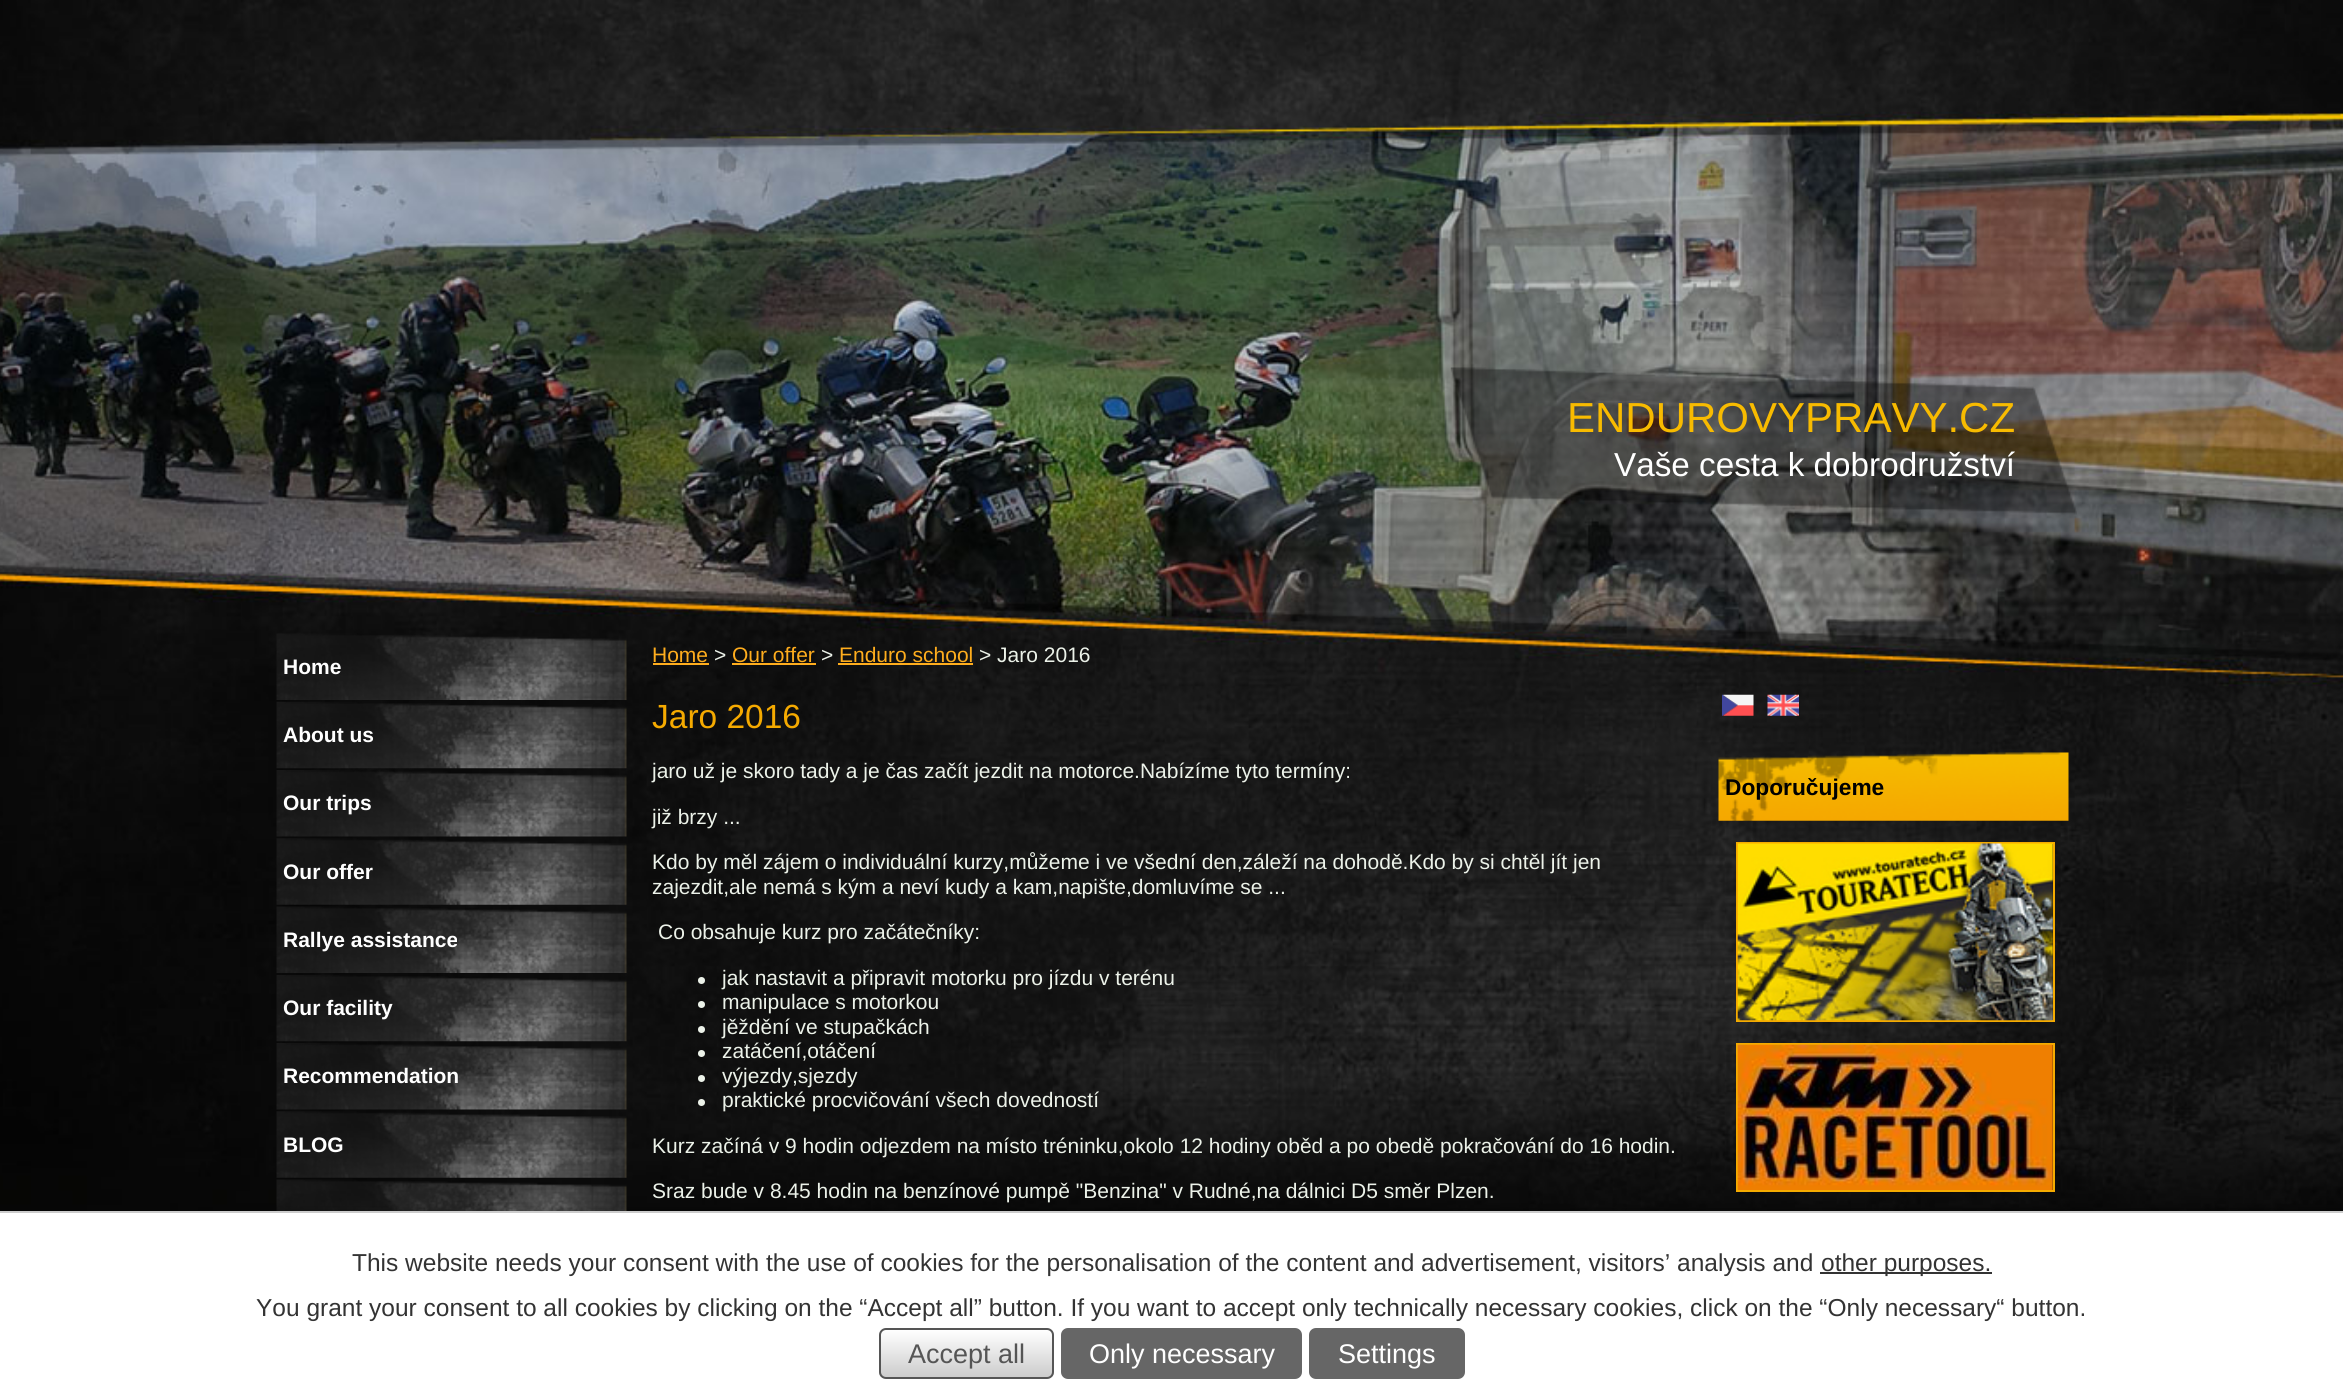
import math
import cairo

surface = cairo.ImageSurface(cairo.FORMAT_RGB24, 2343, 1387)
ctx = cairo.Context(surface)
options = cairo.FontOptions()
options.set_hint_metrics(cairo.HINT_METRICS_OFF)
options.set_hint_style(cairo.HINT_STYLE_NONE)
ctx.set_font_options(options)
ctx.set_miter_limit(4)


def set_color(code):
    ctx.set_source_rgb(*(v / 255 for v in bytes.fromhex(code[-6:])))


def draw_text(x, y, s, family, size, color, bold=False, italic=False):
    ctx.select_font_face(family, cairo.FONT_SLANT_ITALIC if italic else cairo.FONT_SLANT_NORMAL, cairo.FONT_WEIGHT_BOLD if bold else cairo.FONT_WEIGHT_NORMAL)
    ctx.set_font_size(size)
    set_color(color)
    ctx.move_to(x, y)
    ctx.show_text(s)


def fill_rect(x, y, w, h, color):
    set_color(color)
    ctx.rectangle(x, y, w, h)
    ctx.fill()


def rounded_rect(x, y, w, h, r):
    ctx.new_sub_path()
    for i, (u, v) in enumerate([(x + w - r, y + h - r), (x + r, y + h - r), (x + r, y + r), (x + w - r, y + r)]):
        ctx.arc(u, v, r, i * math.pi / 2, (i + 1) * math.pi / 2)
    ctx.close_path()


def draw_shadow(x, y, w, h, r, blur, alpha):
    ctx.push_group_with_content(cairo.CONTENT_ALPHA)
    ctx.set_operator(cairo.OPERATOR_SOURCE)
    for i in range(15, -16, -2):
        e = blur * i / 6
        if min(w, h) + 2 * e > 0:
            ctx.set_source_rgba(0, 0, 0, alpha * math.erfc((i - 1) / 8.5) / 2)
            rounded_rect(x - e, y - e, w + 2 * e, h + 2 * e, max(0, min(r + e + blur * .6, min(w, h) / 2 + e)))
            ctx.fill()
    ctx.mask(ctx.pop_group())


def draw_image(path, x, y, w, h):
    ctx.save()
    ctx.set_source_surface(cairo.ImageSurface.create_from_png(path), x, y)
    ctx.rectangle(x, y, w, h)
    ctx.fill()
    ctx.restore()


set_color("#ffffff")
ctx.paint()
draw_image("assets/img1.png", 0, 0, 2343, 1211)
draw_image("assets/img2.png", 1450, 367, 627, 148)
draw_text(1567, 432, "ENDUROVYPRAVY.CZ", "Liberation Sans", 42, "#f8bb00")
draw_text(1614, 476, "Vaše cesta k dobrodružství", "Liberation Sans", 33.25, "#ffffff")
draw_image("assets/img3.png", 276, 633, 351, 67)
draw_text(283, 674, "Home", "Liberation Sans", 21, "#ffffff", bold=True)
draw_image("assets/img4.png", 276, 701, 351, 68)
draw_text(283, 742, "About us", "Liberation Sans", 21, "#ffffff", bold=True)
draw_image("assets/img5.png", 276, 770, 351, 67)
draw_text(283, 810, "Our trips", "Liberation Sans", 21, "#ffffff", bold=True)
draw_image("assets/img6.png", 276, 838, 351, 67)
draw_text(283, 879, "Our offer", "Liberation Sans", 21, "#ffffff", bold=True)
draw_image("assets/img7.png", 276, 906, 351, 67)
draw_text(283, 947, "Rallye assistance", "Liberation Sans", 21, "#ffffff", bold=True)
draw_image("assets/img8.png", 276, 975, 351, 67)
draw_text(283, 1015, "Our facility", "Liberation Sans", 21, "#ffffff", bold=True)
draw_image("assets/img9.png", 276, 1043, 351, 67)
draw_text(283, 1083, "Recommendation", "Liberation Sans", 21, "#ffffff", bold=True)
draw_image("assets/img10.png", 276, 1111, 351, 67)
draw_text(283, 1152, "BLOG", "Liberation Sans", 21, "#ffffff", bold=True)
draw_image("assets/img11.png", 276, 1179, 351, 32)
draw_text(652, 662, "Home", "Liberation Sans", 21, "#ffad1d")
fill_rect(653, 663, 56, 2, "#ffad1d")
draw_text(714, 662, ">", "Liberation Sans", 21, "#ecf2e9")
draw_text(732, 662, "Our offer", "Liberation Sans", 21, "#ffad1d")
fill_rect(732, 663, 84, 2, "#ffad1d")
draw_text(821, 662, ">", "Liberation Sans", 21, "#ecf2e9")
draw_text(839, 662, "Enduro school", "Liberation Sans", 21, "#ffad1d")
fill_rect(838, 663, 135, 2, "#ffad1d")
draw_text(979, 662, "> Jaro 2016", "Liberation Sans", 21, "#ecf2e9")
draw_text(652, 728, "Jaro 2016", "Liberation Sans", 33.5, "#f5aa00")
draw_text(652, 778, "jaro už je skoro tady a je čas začít jezdit na motorce.Nabízíme tyto termíny:", "Liberation Sans", 21, "#ecf2e9")
draw_text(652, 824, "již brzy ...", "Liberation Sans", 21, "#ecf2e9")
draw_text(652, 869, "Kdo by měl zájem o individuální kurzy,můžeme i ve všední den,záleží na dohodě.Kdo by si chtěl jít jen", "Liberation Sans", 21, "#ecf2e9")
draw_text(652, 894, "zajezdit,ale nemá s kým a neví kudy a kam,napište,domluvíme se ...", "Liberation Sans", 21, "#ecf2e9")
draw_text(658, 939, "Co obsahuje kurz pro začátečníky:", "Liberation Sans", 21, "#ecf2e9")
ctx.new_path()
ctx.arc(701.5, 980.5, 3.5, 0, 2 * math.pi)
ctx.fill()
draw_text(722, 985, "jak nastavit a připravit motorku pro jízdu v terénu", "Liberation Sans", 21, "#ecf2e9")
ctx.new_path()
ctx.arc(701.5, 1004.5, 3.5, 0, 2 * math.pi)
ctx.fill()
draw_text(722, 1009, "manipulace s motorkou", "Liberation Sans", 21, "#ecf2e9")
ctx.new_path()
ctx.arc(701.5, 1029.5, 3.5, 0, 2 * math.pi)
ctx.fill()
draw_text(722, 1034, "jěždění ve stupačkách", "Liberation Sans", 21, "#ecf2e9")
ctx.new_path()
ctx.arc(701.5, 1053.5, 3.5, 0, 2 * math.pi)
ctx.fill()
draw_text(722, 1058, "zatáčení,otáčení", "Liberation Sans", 21, "#ecf2e9")
ctx.new_path()
ctx.arc(701.5, 1078.5, 3.5, 0, 2 * math.pi)
ctx.fill()
draw_text(722, 1083, "výjezdy,sjezdy", "Liberation Sans", 21, "#ecf2e9")
ctx.new_path()
ctx.arc(701.5, 1102.5, 3.5, 0, 2 * math.pi)
ctx.fill()
draw_text(722, 1107, "praktické procvičování všech dovedností", "Liberation Sans", 21, "#ecf2e9")
draw_text(652, 1153, "Kurz začíná v 9 hodin odjezdem na místo tréninku,okolo 12 hodiny oběd a po obedě pokračování do 16 hodin.", "Liberation Sans", 21, "#ecf2e9")
draw_text(652, 1198, "Sraz bude v 8.45 hodin na benzínové pumpě \"Benzina\" v Rudné,na dálnici D5 směr Plzen.", "Liberation Sans", 21, "#ecf2e9")
draw_image("assets/img12.png", 1722, 694, 32, 22)
draw_image("assets/img13.png", 1767, 694, 32, 22)
draw_image("assets/img14.png", 1718, 752, 351, 69)
draw_text(1725, 795, "Doporučujeme", "Liberation Sans", 22.75, "#000000", bold=True)
ctx.rectangle(1737, 843, 317, 178)
set_color("#f5ab00")
ctx.stroke()
draw_image("assets/img15.png", 1737, 843, 316, 178)
ctx.rectangle(1737, 1044, 317, 147)
ctx.stroke()
draw_image("assets/img16.png", 1737, 1044, 316, 146)
set_color("#000000")
draw_shadow(0, 1211, 2343, 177, 0, 4.5, 0.2)
fill_rect(0, 1213, 2343, 174, "#ffffff")
fill_rect(0, 1211, 2343, 2, "#cccccc")
draw_text(352, 1271, "This website needs your consent with the use of cookies for the personalisation of the content and advertisement, visitors’ analysis and", "Liberation Sans", 24.5, "#333333")
fill_rect(1820, 1272, 172, 2, "#333333")
draw_text(1821, 1271, "other purposes.", "Liberation Sans", 24.5, "#333333")
draw_text(256, 1316, "You grant your consent to all cookies by clicking on the “Accept all” button. If you want to accept only technically necessary cookies, click on the “Only necessary“ button.", "Liberation Sans", 24.5, "#333333")
ctx.save()
rounded_rect(879, 1328, 175, 51, 7)
ctx.clip()
gradient = cairo.LinearGradient(880, 1330, 880, 1377)
gradient.add_color_stop_rgba(0, 1, 1, 1, 1)
gradient.add_color_stop_rgba(1, 0.8, 0.8, 0.8, 1)
ctx.set_source(gradient)
ctx.rectangle(879, 1330, 175, 47)
ctx.fill()
ctx.restore()
rounded_rect(880, 1329, 173, 49, 6)
set_color("#555555")
ctx.stroke()
draw_text(908, 1363, "Accept all", "Liberation Sans", 27, "#555555")
set_color("#666666")
rounded_rect(1062, 1329, 239, 49, 6)
ctx.fill_preserve()
ctx.stroke()
draw_text(1089, 1363, "Only necessary", "Liberation Sans", 27, "#ffffff")
set_color("#666666")
rounded_rect(1310, 1329, 154, 49, 6)
ctx.fill_preserve()
ctx.stroke()
draw_text(1338, 1363, "Settings", "Liberation Sans", 27, "#ffffff")
surface.write_to_png("output.png")
